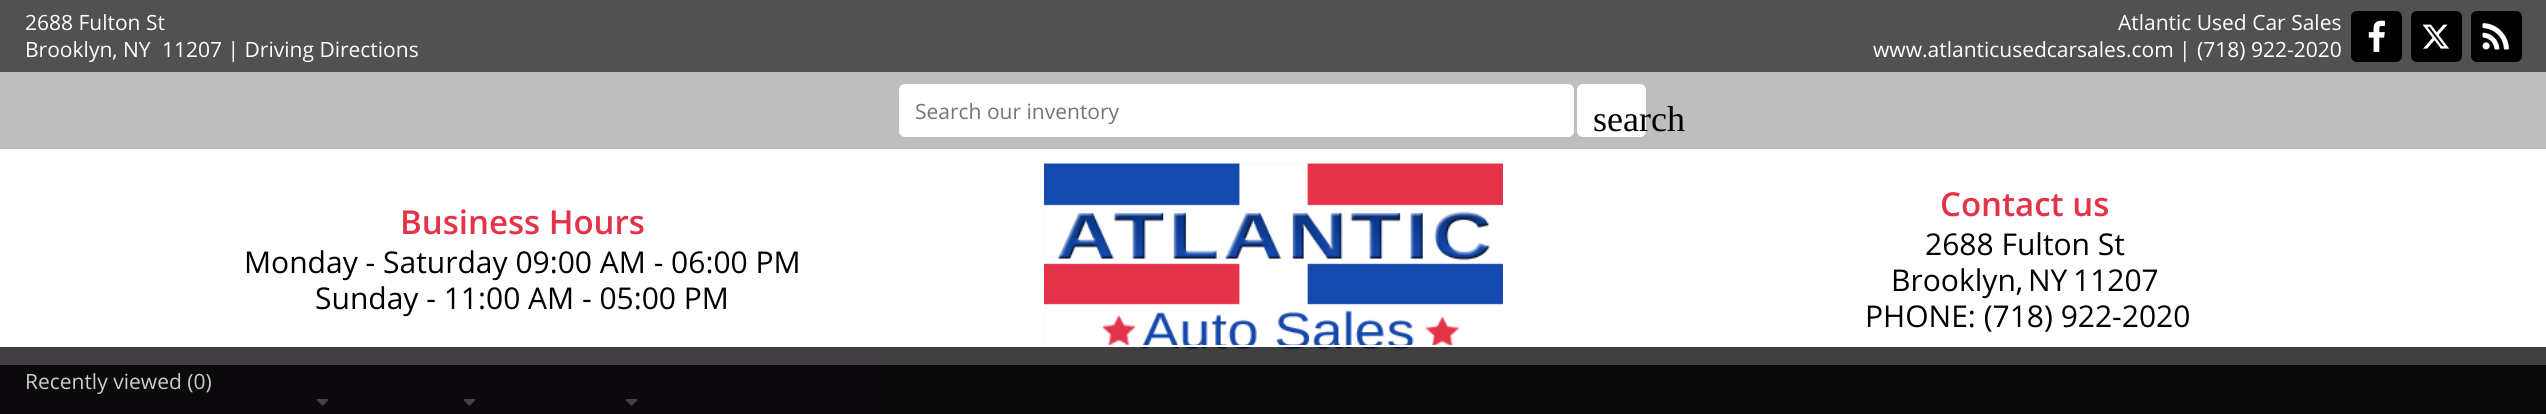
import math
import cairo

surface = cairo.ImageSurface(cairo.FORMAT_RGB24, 2546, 414)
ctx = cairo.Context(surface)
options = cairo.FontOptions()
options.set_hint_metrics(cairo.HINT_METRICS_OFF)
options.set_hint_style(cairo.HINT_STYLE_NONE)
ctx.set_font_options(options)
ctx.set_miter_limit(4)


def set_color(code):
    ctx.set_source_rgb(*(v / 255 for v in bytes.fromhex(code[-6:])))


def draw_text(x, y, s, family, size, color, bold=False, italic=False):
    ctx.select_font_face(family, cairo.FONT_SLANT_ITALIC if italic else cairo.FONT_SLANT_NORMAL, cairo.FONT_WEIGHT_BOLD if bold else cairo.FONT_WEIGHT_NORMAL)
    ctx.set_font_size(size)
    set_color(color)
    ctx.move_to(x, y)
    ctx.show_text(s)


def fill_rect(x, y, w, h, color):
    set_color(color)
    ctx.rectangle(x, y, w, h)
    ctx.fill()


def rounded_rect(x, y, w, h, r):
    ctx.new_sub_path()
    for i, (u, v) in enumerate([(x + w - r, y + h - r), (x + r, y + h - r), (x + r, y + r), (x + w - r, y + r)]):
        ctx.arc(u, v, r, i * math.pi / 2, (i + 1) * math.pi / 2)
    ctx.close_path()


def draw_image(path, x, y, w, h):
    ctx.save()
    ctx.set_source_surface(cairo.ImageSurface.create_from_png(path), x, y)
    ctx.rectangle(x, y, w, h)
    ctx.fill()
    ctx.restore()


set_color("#515151")
ctx.paint()
draw_text(25, 30, "2688 Fulton St", "Open Sans", 21, "#ffffff")
draw_text(25, 57, "Brooklyn, NY", "Open Sans", 21, "#ffffff")
draw_text(162, 57, "11207 | Driving Directions", "Open Sans", 21, "#ffffff")
draw_text(2118, 30, "Atlantic Used Car Sales", "Open Sans", 21, "#ffffff")
draw_text(1873, 57, "www.atlanticusedcarsales.com", "Open Sans", 21, "#ffffff")
draw_text(2179, 57, "|", "Open Sans", 21, "#ffffff")
draw_text(2197, 57, "(718) 922-2020", "Open Sans", 21, "#ffffff")
set_color("#000000")
rounded_rect(2351, 11, 51, 51, 6)
ctx.fill()
draw_image("assets/img1.png", 2368, 20, 17, 32)
rounded_rect(2411, 11, 51, 51, 6)
ctx.fill()
draw_image("assets/img2.png", 2422, 24, 27, 25)
rounded_rect(2471, 11, 51, 51, 6)
ctx.fill()
draw_image("assets/img3.png", 2482, 23, 27, 27)
fill_rect(0, 72, 2546, 77, "#bebebe")
set_color("#ffffff")
rounded_rect(900, 85, 673, 51, 5)
ctx.fill_preserve()
ctx.stroke()
draw_text(915, 119, "Search our inventory", "Open Sans", 21, "#757575")
set_color("#ffffff")
rounded_rect(1578, 85, 67, 51, 5)
ctx.fill_preserve()
ctx.stroke()
draw_text(1593, 131, "search", "Liberation Serif", 36, "#000000")
fill_rect(0, 149, 2546, 216, "#ffffff")
draw_text(400, 234, "Business Hours", "Open Sans SemiBold", 33, "#e43248")
draw_text(244, 273, "Monday - Saturday 09:00 AM - 06:00 PM", "Open Sans", 30, "#000000")
draw_text(315, 309, "Sunday - 11:00 AM - 05:00 PM", "Open Sans", 30, "#000000")
draw_image("assets/img4.png", 1044, 163, 459, 187)
draw_text(1940, 216, "Contact us", "Open Sans SemiBold", 33, "#e43248")
draw_text(1925, 255, "2688 Fulton St", "Open Sans", 30, "#000000")
draw_text(1891, 291, "Brooklyn,", "Open Sans", 30, "#000000")
draw_text(2028, 291, "NY", "Open Sans", 30, "#000000")
draw_text(2073, 291, "11207", "Open Sans", 30, "#000000")
draw_text(1865, 327, "PHONE: (718) 922-2020", "Open Sans", 30, "#000000")
fill_rect(0, 365, 2546, 49, "#222222")
draw_image("assets/img5.png", 316, 399, 13, 7)
draw_image("assets/img5.png", 463, 399, 13, 7)
draw_image("assets/img5.png", 625, 399, 13, 7)
gradient = cairo.LinearGradient(0, 380, 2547, 380)
gradient.add_color_stop_rgba(0, 0.012, 0, 0.012, 0.75)
gradient.add_color_stop_rgba(1, 0, 0, 0, 0.75)
ctx.set_source(gradient)
ctx.rectangle(0, 347, 2546, 67)
ctx.fill()
fill_rect(1044, 345, 410, 2, "#ffffff")
draw_text(25, 389, "Recently viewed (0)", "Open Sans", 21, "#cccccc")
surface.write_to_png("output.png")
